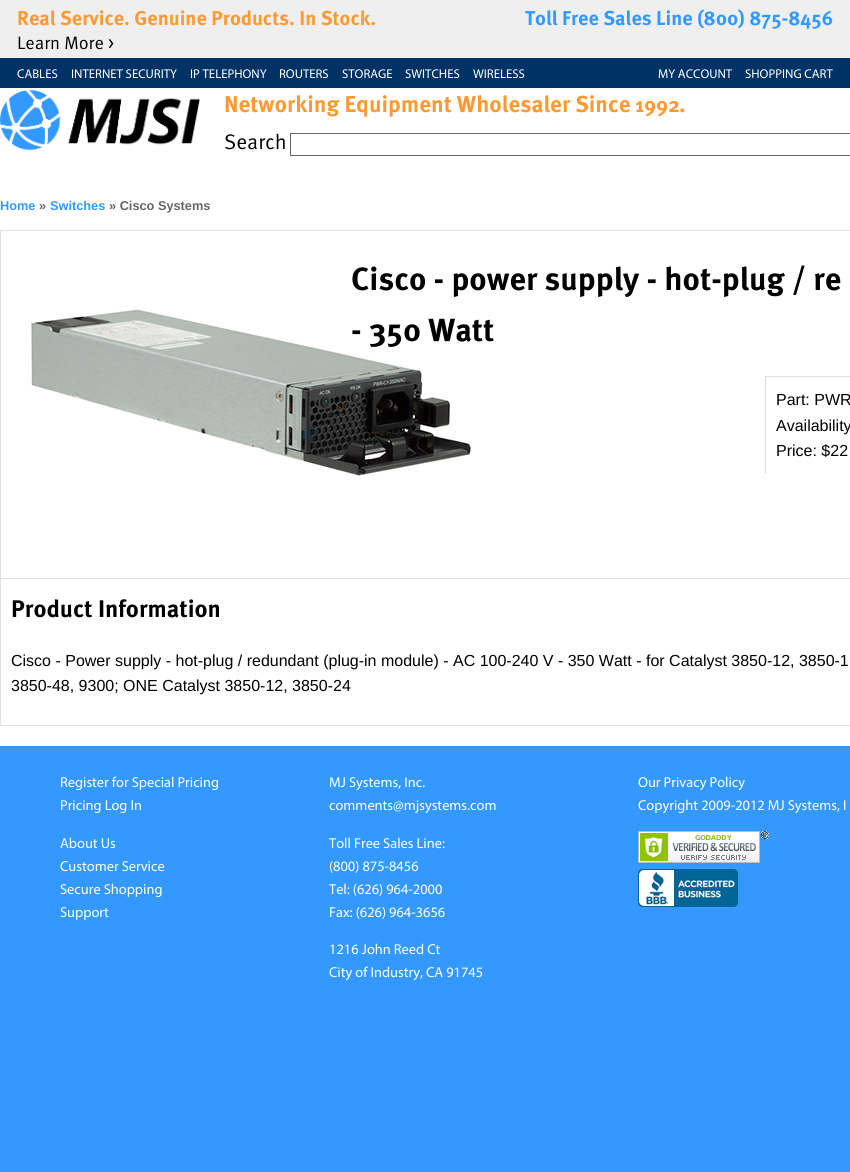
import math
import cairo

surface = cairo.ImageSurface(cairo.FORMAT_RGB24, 850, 1172)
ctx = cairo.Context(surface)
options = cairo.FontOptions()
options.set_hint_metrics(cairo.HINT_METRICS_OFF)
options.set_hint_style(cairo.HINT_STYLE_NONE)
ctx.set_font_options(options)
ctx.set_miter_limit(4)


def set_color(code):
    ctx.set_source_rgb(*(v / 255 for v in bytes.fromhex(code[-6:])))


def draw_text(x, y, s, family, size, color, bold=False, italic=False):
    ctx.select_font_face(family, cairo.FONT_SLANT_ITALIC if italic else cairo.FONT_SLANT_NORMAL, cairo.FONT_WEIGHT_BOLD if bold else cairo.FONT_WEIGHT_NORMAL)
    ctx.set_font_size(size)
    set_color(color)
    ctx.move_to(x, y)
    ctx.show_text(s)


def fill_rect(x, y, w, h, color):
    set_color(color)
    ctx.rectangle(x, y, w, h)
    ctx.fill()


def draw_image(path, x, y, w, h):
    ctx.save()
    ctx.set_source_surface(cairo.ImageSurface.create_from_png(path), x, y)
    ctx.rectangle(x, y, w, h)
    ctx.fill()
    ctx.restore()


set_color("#3399ff")
ctx.paint()
fill_rect(0, 88, 850, 658, "#ffffff")
fill_rect(0, 58, 850, 30, "#003265")
fill_rect(0, 0, 850, 58, "#efefef")
draw_text(17, 25, "Real Service. Genuine Products. In Stock.", "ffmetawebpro", 20, "#ff9932", bold=True)
draw_text(525, 25, "Toll Free Sales Line (800) 875-8456", "ffmetawebpro", 20, "#3399ff", bold=True)
draw_text(17, 49, "Learn More >", "ffmetawebpro", 18, "#000000")
draw_text(17, 78, "CABLES", "Myriad", 12.75, "#ffffff")
draw_text(71, 78, "INTERNET SECURITY", "Myriad", 12.75, "#ffffff")
draw_text(190, 78, "IP TELEPHONY", "Myriad", 12.75, "#ffffff")
draw_text(279, 78, "ROUTERS", "Myriad", 12.75, "#ffffff")
draw_text(342, 78, "STORAGE", "Myriad", 12.75, "#ffffff")
draw_text(405, 78, "SWITCHES", "Myriad", 12.75, "#ffffff")
draw_text(473, 78, "WIRELESS", "Myriad", 12.75, "#ffffff")
draw_text(658, 78, "MY ACCOUNT", "Myriad", 12.75, "#ffffff")
draw_text(745, 78, "SHOPPING CART", "Myriad", 12.75, "#ffffff")
draw_image("assets/img1.png", 0, 90, 200, 60)
draw_text(224, 112, "Networking Equipment Wholesaler Since", "ffmetawebpro", 22.9, "#ff9932", bold=True)
draw_text(635, 112, "1992", "ffmetawebpro", 21, "#ff9932", bold=True)
draw_text(679, 112, ".", "ffmetawebpro", 22.9, "#ff9932", bold=True)
draw_text(224, 149, "Search", "ffmetawebpro", 21, "#000000")
ctx.rectangle(290.5, 133.5, 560, 22)
set_color("#666666")
ctx.set_line_width(1)
ctx.stroke()
draw_text(0, 210, "Home", "Liberation Sans", 12.75, "#3399ff", bold=True)
draw_text(39, 210, "»", "Liberation Sans", 12.75, "#666666", bold=True)
draw_text(50, 210, "Switches", "Liberation Sans", 12.75, "#3399ff", bold=True)
draw_text(109, 210, "» Cisco Systems", "Liberation Sans", 12.75, "#666666", bold=True)
ctx.rectangle(0.5, 230.5, 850, 495)
set_color("#e1e1e1")
ctx.stroke()
draw_image("assets/img2.png", 31, 309, 440, 167)
draw_text(351, 290, "Cisco - power supply - hot-plug / re", "ffmetawebpro", 32, "#000000", bold=True)
draw_text(351, 341, "- 350 Watt", "ffmetawebpro", 32, "#000000", bold=True)
fill_rect(765, 376, 85, 1, "#e1e1e1")
fill_rect(765, 376, 1, 98, "#e1e1e1")
draw_text(776, 405, "Part: PWR", "Liberation Sans", 16, "#000000")
draw_text(776, 431, "Availability", "Liberation Sans", 16, "#000000")
draw_text(776, 456, "Price: $22", "Liberation Sans", 16, "#000000")
fill_rect(1, 578, 849, 1, "#e1e1e1")
draw_text(11, 617, "Product Information", "ffmetawebpro", 24, "#000000", bold=True)
draw_text(11, 666, "Cisco - Power supply - hot-plug / redundant (plug-in module) - AC 100-240 V - 350 Watt - for Catalyst 3850-12, 3850-1", "Liberation Sans", 16, "#000000")
draw_text(11, 691, "3850-48, 9300; ONE Catalyst 3850-12, 3850-24", "Liberation Sans", 16, "#000000")
draw_text(60, 787, "Register for Special Pricing", "Myriad", 14.4, "#ffffff")
draw_text(60, 810, "Pricing Log In", "Myriad", 14.4, "#ffffff")
draw_text(60, 848, "About Us", "Myriad", 14.4, "#ffffff")
draw_text(60, 871, "Customer Service", "Myriad", 14.4, "#ffffff")
draw_text(60, 894, "Secure Shopping", "Myriad", 14.4, "#ffffff")
draw_text(60, 917, "Support", "Myriad", 14.4, "#ffffff")
draw_text(329, 787, "MJ Systems, Inc.", "Myriad", 14.4, "#ffffff")
draw_text(329, 810, "comments@mjsystems.com", "Myriad", 14.4, "#ffffff")
draw_text(329, 848, "Toll Free Sales Line:", "Myriad", 14.4, "#ffffff")
draw_text(329, 871, "(800) 875-8456", "Myriad", 14.4, "#ffffff")
draw_text(329, 894, "Tel: (626) 964-2000", "Myriad", 14.4, "#ffffff")
draw_text(329, 917, "Fax: (626) 964-3656", "Myriad", 14.4, "#ffffff")
draw_text(329, 954, "1216 John Reed Ct", "Myriad", 14.4, "#ffffff")
draw_text(329, 977, "City of Industry, CA 91745", "Myriad", 14.4, "#ffffff")
draw_text(638, 787, "Our Privacy Policy", "Myriad", 14.4, "#ffffff")
draw_text(638, 810, "Copyright 2009-2012 MJ Systems, I", "Myriad", 14.4, "#ffffff")
draw_image("assets/img3.png", 638, 831, 131, 32)
draw_image("assets/img4.png", 638, 869, 100, 38)
surface.write_to_png("output.png")
